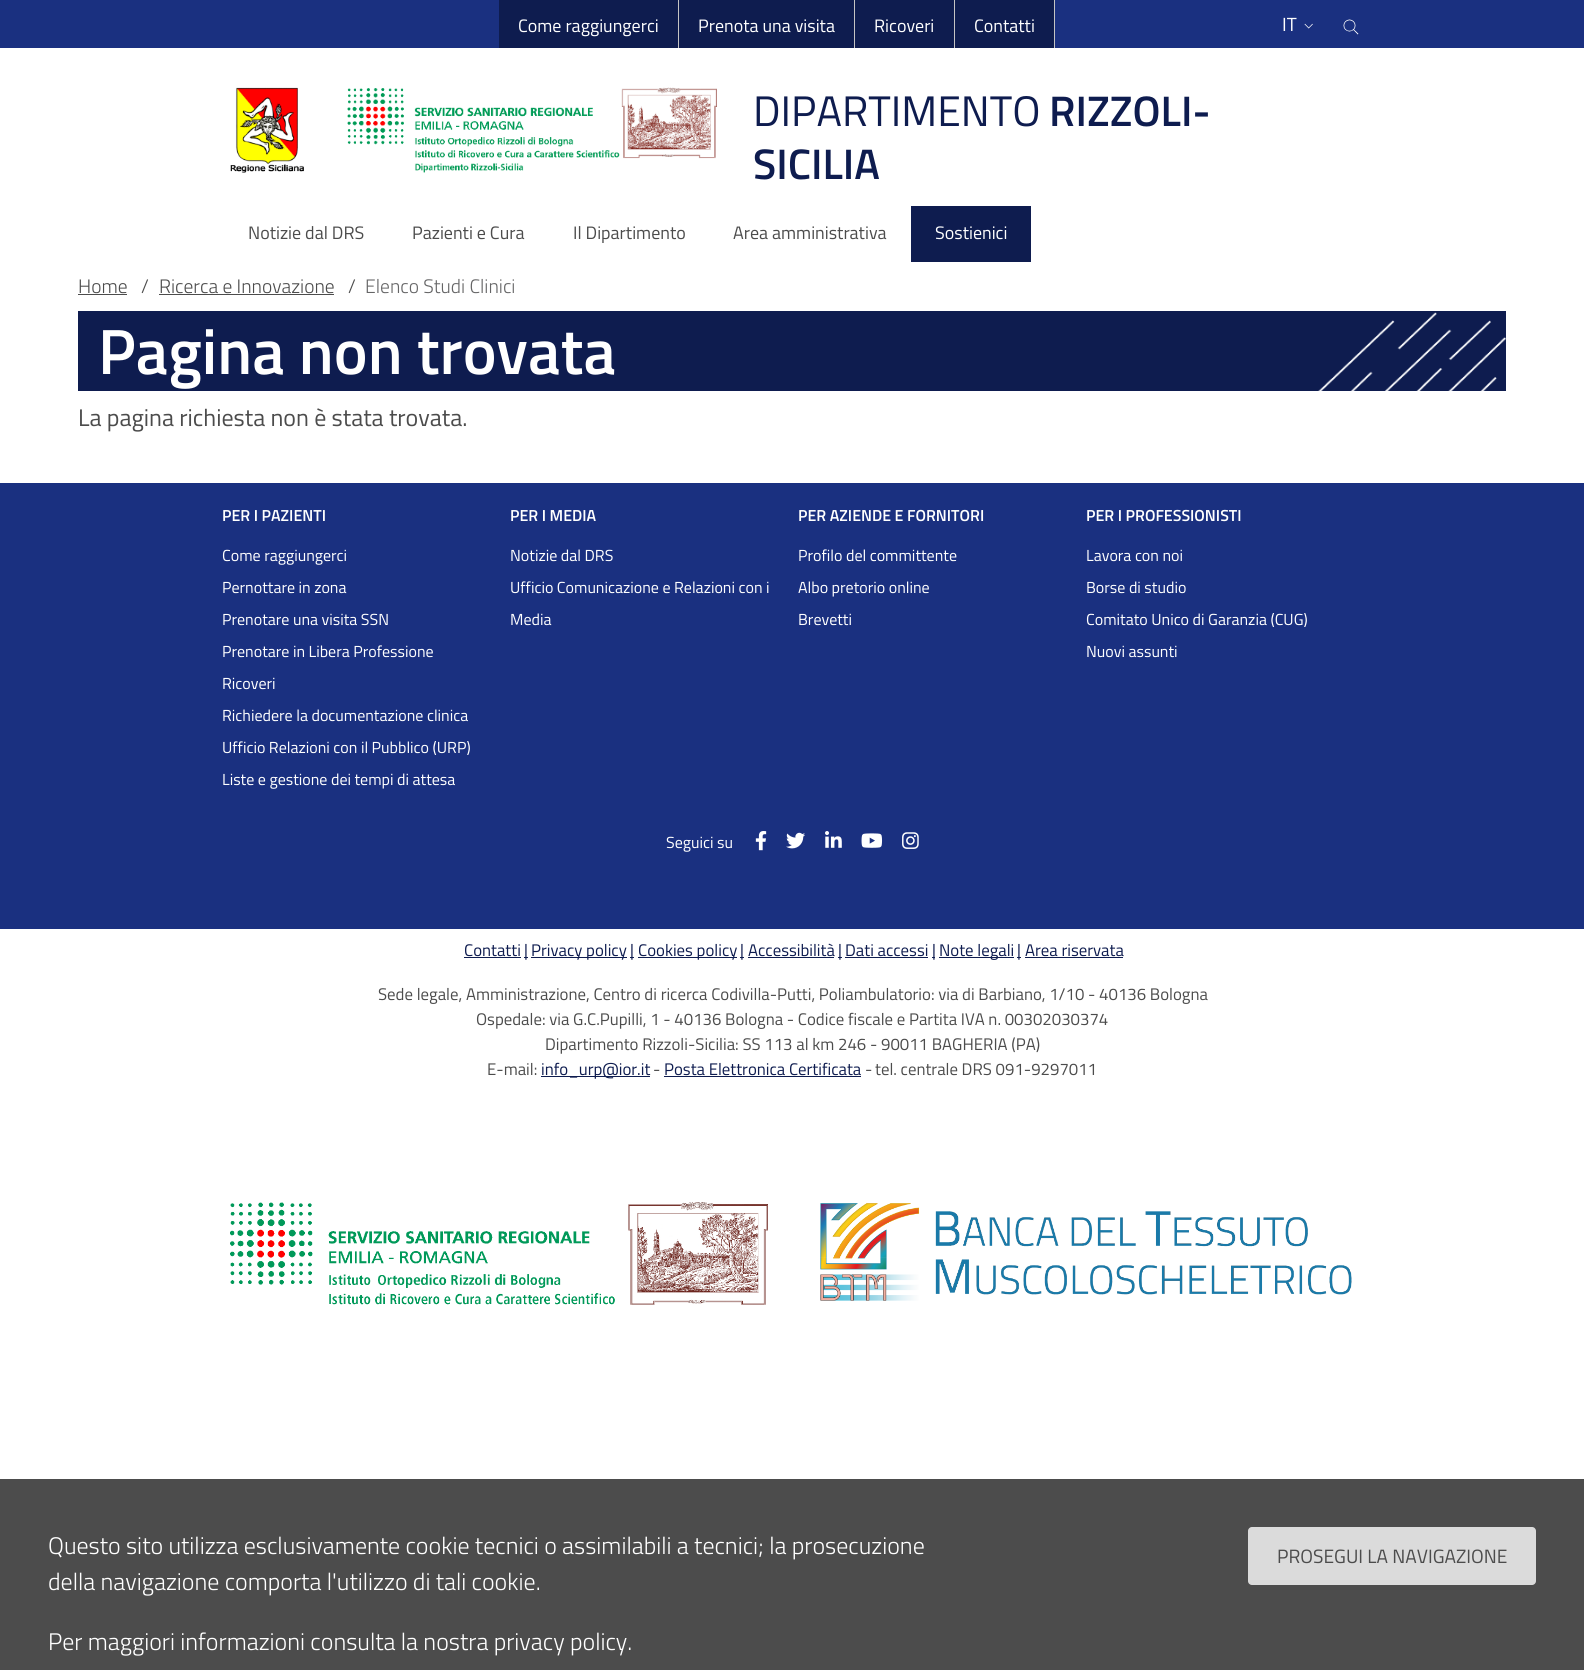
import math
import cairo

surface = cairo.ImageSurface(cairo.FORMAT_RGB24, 1584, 1670)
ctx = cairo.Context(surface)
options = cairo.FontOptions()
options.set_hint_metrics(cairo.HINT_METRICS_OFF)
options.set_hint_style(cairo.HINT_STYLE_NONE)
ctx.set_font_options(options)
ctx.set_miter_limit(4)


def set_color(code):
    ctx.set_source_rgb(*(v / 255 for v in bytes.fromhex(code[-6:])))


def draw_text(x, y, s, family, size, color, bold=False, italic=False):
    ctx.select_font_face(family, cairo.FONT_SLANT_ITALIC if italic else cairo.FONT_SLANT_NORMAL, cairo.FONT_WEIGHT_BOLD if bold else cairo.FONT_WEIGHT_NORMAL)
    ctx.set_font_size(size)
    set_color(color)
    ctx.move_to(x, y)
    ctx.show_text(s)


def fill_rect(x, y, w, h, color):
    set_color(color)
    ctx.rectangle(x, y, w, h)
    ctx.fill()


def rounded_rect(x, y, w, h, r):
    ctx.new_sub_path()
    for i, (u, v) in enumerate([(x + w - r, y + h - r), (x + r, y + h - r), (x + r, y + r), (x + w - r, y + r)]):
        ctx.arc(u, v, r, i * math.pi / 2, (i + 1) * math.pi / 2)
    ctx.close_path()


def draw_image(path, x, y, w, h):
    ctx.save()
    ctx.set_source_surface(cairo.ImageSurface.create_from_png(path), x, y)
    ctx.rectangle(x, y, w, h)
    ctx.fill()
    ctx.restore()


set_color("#ffffff")
ctx.paint()
fill_rect(0, 0, 1584, 48, "#1a3080")
fill_rect(499, 0, 555, 48, "#0e1c4f")
fill_rect(678, 0, 1, 48, "#c4c4c4")
draw_text(518, 32, "Come raggiungerci", "Titillium Web", 18, "#ffffff")
fill_rect(854, 0, 1, 48, "#c4c4c4")
draw_text(698, 32, "Prenota una visita", "Titillium Web", 18, "#ffffff")
fill_rect(954, 0, 1, 48, "#c4c4c4")
draw_text(874, 32, "Ricoveri", "Titillium Web", 18, "#ffffff")
fill_rect(1054, 0, 1, 48, "#c4c4c4")
draw_text(974, 32, "Contatti", "Titillium Web", 18, "#ffffff")
draw_text(1282, 31, "IT", "Titillium Web", 19, "#ffffff")
draw_image("assets/img1.png", 1304, 23, 9, 6)
draw_image("assets/img2.png", 1343, 19, 16, 16)
draw_image("assets/img3.png", 230, 87, 487, 86)
draw_text(753, 126, "DIPARTIMENTO", "Titillium Web", 42.75, "#0e1c4f")
draw_text(1049, 126, "RIZZOLI-", "Titillium Web SemiBold", 42.75, "#0e1c4f")
draw_text(753, 179, "SICILIA", "Titillium Web SemiBold", 42.75, "#0e1c4f")
draw_text(248, 239, "Notizie dal DRS", "Titillium Web", 18, "#4c4c4c")
draw_text(412, 239, "Pazienti e Cura", "Titillium Web", 18, "#4c4c4c")
draw_text(573, 239, "Il Dipartimento", "Titillium Web", 18, "#4c4c4c")
draw_text(733, 239, "Area amministrativa", "Titillium Web", 18, "#4c4c4c")
fill_rect(911, 206, 120, 56, "#0e1c4f")
draw_text(935, 239, "Sostienici", "Titillium Web", 18, "#ffffff")
draw_text(78, 293, "Home", "Titillium Web Light", 19.5, "#4c4c4c")
fill_rect(78, 294, 49, 1, "#4c4c4c")
draw_text(141, 293, "/", "Titillium Web Light", 19.5, "#4c4c4c")
draw_text(159, 293, "Ricerca e Innovazione", "Titillium Web Light", 19.5, "#4c4c4c")
fill_rect(159, 294, 175, 1, "#4c4c4c")
draw_text(348, 293, "/", "Titillium Web Light", 19.5, "#4c4c4c")
draw_text(365, 293, "Elenco Studi Clinici", "Titillium Web Light", 19.5, "#656566")
fill_rect(78, 311, 1428, 80, "#0e1c4f")
draw_image("assets/img4.png", 1318, 312, 188, 79)
draw_text(98, 374, "Pagina non trovata", "Titillium Web SemiBold", 64, "#ffffff")
draw_text(78, 426, "La pagina richiesta non è stata trovata.", "Titillium Web", 24, "#4c4c4c")
fill_rect(0, 483, 1584, 446, "#1a3080")
draw_text(222, 521, "PER I PAZIENTI", "Titillium Web SemiBold", 16, "#ffffff")
draw_text(222, 561, "Come raggiungerci", "Titillium Web", 16, "#ffffff")
draw_text(222, 593, "Pernottare in zona", "Titillium Web", 16, "#ffffff")
draw_text(222, 625, "Prenotare una visita SSN", "Titillium Web", 16, "#ffffff")
draw_text(222, 657, "Prenotare in Libera Professione", "Titillium Web", 16, "#ffffff")
draw_text(222, 689, "Ricoveri", "Titillium Web", 16, "#ffffff")
draw_text(222, 721, "Richiedere la documentazione clinica", "Titillium Web", 16, "#ffffff")
draw_text(222, 753, "Ufficio Relazioni con il Pubblico (URP)", "Titillium Web", 16, "#ffffff")
draw_text(222, 785, "Liste e gestione dei tempi di attesa", "Titillium Web", 16, "#ffffff")
draw_text(510, 521, "PER I MEDIA", "Titillium Web SemiBold", 16, "#ffffff")
draw_text(510, 561, "Notizie dal DRS", "Titillium Web", 16, "#ffffff")
draw_text(510, 593, "Ufficio Comunicazione e Relazioni con i", "Titillium Web", 16, "#ffffff")
draw_text(510, 625, "Media", "Titillium Web", 16, "#ffffff")
draw_text(798, 521, "PER AZIENDE E FORNITORI", "Titillium Web SemiBold", 16, "#ffffff")
draw_text(798, 561, "Profilo del committente", "Titillium Web", 16, "#ffffff")
draw_text(798, 593, "Albo pretorio online", "Titillium Web", 16, "#ffffff")
draw_text(798, 625, "Brevetti", "Titillium Web", 16, "#ffffff")
draw_text(1086, 521, "PER I PROFESSIONISTI", "Titillium Web SemiBold", 16, "#ffffff")
draw_text(1086, 561, "Lavora con noi", "Titillium Web", 16, "#ffffff")
draw_text(1086, 593, "Borse di studio", "Titillium Web", 16, "#ffffff")
draw_text(1086, 625, "Comitato Unico di Garanzia (CUG)", "Titillium Web", 16, "#ffffff")
draw_text(1086, 657, "Nuovi assunti", "Titillium Web", 16, "#ffffff")
draw_text(666, 848, "Seguici su", "Titillium Web", 16, "#ffffff")
draw_image("assets/img5.png", 755, 831, 12, 20)
draw_image("assets/img6.png", 786, 832, 19, 17)
draw_image("assets/img7.png", 825, 831, 17, 17)
draw_image("assets/img8.png", 861, 833, 22, 15)
draw_image("assets/img9.png", 902, 832, 17, 17)
draw_text(464, 956, "Contatti", "Titillium Web", 16.8, "#0e1c4f")
fill_rect(464, 957, 57, 1, "#0e1c4f")
fill_rect(524, 957, 4, 1, "#0e1c4f")
draw_text(524, 956, "|", "Titillium Web", 16.8, "#0e1c4f")
fill_rect(531, 957, 96, 1, "#0e1c4f")
draw_text(531, 956, "Privacy policy", "Titillium Web", 16.8, "#0e1c4f")
fill_rect(630, 957, 4, 1, "#0e1c4f")
draw_text(630, 956, "|", "Titillium Web", 16.8, "#0e1c4f")
fill_rect(638, 957, 99, 1, "#0e1c4f")
draw_text(638, 956, "Cookies policy", "Titillium Web", 16.8, "#0e1c4f")
fill_rect(740, 957, 4, 1, "#0e1c4f")
draw_text(740, 956, "|", "Titillium Web", 16.8, "#0e1c4f")
draw_text(748, 956, "Accessibilità", "Titillium Web", 16.8, "#0e1c4f")
fill_rect(748, 957, 86, 1, "#0e1c4f")
fill_rect(838, 957, 4, 1, "#0e1c4f")
draw_text(838, 956, "|", "Titillium Web", 16.8, "#0e1c4f")
draw_text(845, 956, "Dati accessi", "Titillium Web", 16.8, "#0e1c4f")
fill_rect(845, 957, 83, 1, "#0e1c4f")
fill_rect(932, 957, 3, 1, "#0e1c4f")
draw_text(932, 956, "|", "Titillium Web", 16.8, "#0e1c4f")
fill_rect(939, 957, 75, 1, "#0e1c4f")
draw_text(939, 956, "Note legali", "Titillium Web", 16.8, "#0e1c4f")
fill_rect(1017, 957, 4, 1, "#0e1c4f")
draw_text(1017, 956, "|", "Titillium Web", 16.8, "#0e1c4f")
draw_text(1025, 956, "Area riservata", "Titillium Web", 16.8, "#0e1c4f")
fill_rect(1025, 957, 98, 1, "#0e1c4f")
draw_text(378, 1000, "Sede legale, Amministrazione, Centro di ricerca Codivilla-Putti, Poliambulatorio: via di Barbiano, 1/10 - 40136 Bologna", "Titillium Web", 16.8, "#4c4c4c")
draw_text(476, 1025, "Ospedale: via G.C.Pupilli, 1 - 40136 Bologna - Codice fiscale e Partita IVA n. 00302030374", "Titillium Web", 16.8, "#4c4c4c")
draw_text(545, 1050, "Dipartimento Rizzoli-Sicilia: SS 113 al km 246 - 90011 BAGHERIA (PA)", "Titillium Web", 16.8, "#4c4c4c")
draw_text(487, 1075, "E-mail:", "Titillium Web", 16.8, "#4c4c4c")
fill_rect(541, 1076, 109, 1, "#0e1c4f")
draw_text(541, 1075, "info_urp@ior.it", "Titillium Web", 16.8, "#0e1c4f")
draw_text(653, 1075, "-", "Titillium Web", 16.8, "#4c4c4c")
draw_text(664, 1075, "Posta Elettronica Certificata", "Titillium Web", 16.8, "#0e1c4f")
fill_rect(664, 1076, 197, 1, "#0e1c4f")
draw_text(865, 1075, "-", "Titillium Web", 16.8, "#4c4c4c")
draw_text(875, 1075, "tel. centrale DRS 091-9297011", "Titillium Web", 16.8, "#4c4c4c")
draw_image("assets/img10.png", 230, 1202, 538, 103)
draw_image("assets/img11.png", 820, 1203, 532, 98)
fill_rect(0, 1479, 1584, 191, "#4c4c4c")
draw_text(48, 1554, "Questo sito utilizza esclusivamente cookie tecnici o assimilabili a tecnici; la prosecuzione", "Titillium Web Light", 24, "#ffffff")
draw_text(48, 1590, "della navigazione comporta l'utilizzo di tali cookie.", "Titillium Web Light", 24, "#ffffff")
draw_text(48, 1650, "Per maggiori informazioni consulta la nostra privacy policy.", "Titillium Web Light", 24, "#ffffff")
set_color("#dbdbdb")
rounded_rect(1248, 1527, 288, 58, 4)
ctx.fill()
draw_text(1277, 1563, "PROSEGUI LA NAVIGAZIONE", "Titillium Web", 19.25, "#4c4c4c")
surface.write_to_png("output.png")
